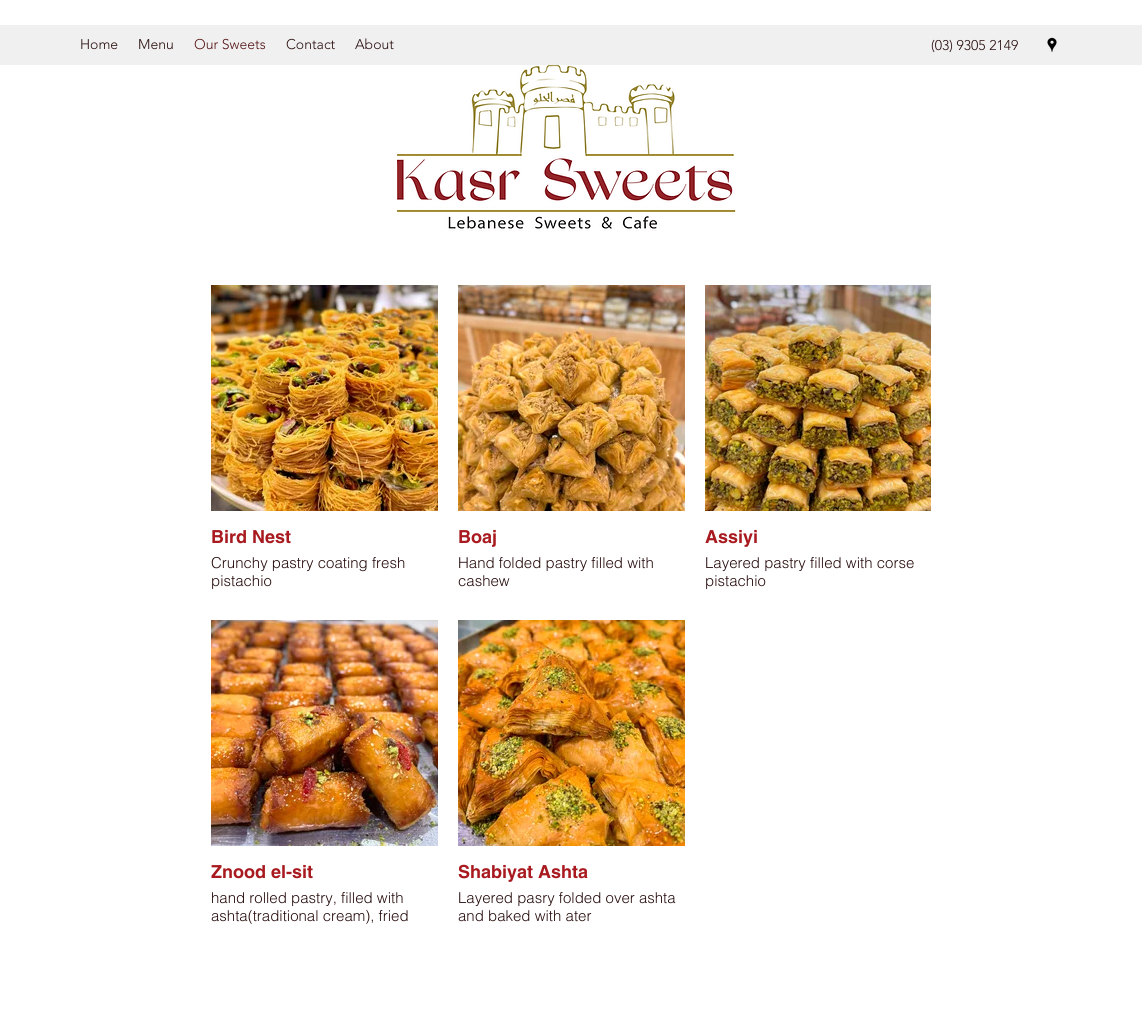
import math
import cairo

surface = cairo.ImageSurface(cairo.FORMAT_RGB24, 1142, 1024)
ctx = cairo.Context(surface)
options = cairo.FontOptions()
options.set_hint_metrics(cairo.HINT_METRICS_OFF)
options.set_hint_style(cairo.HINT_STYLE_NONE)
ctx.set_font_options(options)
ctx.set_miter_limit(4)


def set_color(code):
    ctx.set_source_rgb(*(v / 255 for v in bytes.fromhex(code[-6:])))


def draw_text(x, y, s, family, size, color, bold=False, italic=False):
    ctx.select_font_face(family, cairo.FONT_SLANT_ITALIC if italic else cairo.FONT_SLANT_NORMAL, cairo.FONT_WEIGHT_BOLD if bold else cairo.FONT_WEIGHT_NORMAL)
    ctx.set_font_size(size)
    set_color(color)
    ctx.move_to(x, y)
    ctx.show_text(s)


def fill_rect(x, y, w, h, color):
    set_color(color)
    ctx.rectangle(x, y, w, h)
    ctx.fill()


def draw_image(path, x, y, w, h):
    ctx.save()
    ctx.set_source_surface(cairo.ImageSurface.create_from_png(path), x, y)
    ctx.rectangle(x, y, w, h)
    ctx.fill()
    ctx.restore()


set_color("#ffffff")
ctx.paint()
fill_rect(0, 25, 1142, 40, "#f0f0f0")
draw_text(80, 49, "Home", "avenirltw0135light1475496 Light", 14, "#270c0c")
draw_text(138, 49, "Menu", "avenirltw0135light1475496 Light", 14, "#270c0c")
draw_text(194, 49, "Our Sweets", "avenirltw0135light1475496 Light", 14, "#531213")
draw_text(286, 49, "Contact", "avenirltw0135light1475496 Light", 14, "#270c0c")
draw_text(355, 49, "About", "avenirltw0135light1475496 Light", 14, "#270c0c")
draw_text(931, 50, "(03) 9305 2149", "avenirltw0135light1475496 Light", 14, "#270c0c")
draw_image("assets/img1.png", 1047, 37, 10, 15)
draw_image("assets/img2.png", 397, 65, 339, 166)
draw_image("assets/img3.png", 211, 285, 227, 226)
draw_text(211, 543, "Bird Nest", "helvetica", 18, "#a81a1f", bold=True)
draw_text(211, 568, "Crunchy pastry coating fresh", "helvetica Light", 15, "#270c0c")
draw_text(211, 586, "pistachio", "helvetica Light", 15, "#270c0c")
draw_image("assets/img4.png", 458, 285, 227, 226)
draw_text(458, 543, "Boaj", "helvetica", 18, "#a81a1f", bold=True)
draw_text(458, 568, "Hand folded pastry filled with", "helvetica Light", 15, "#270c0c")
draw_text(458, 586, "cashew", "helvetica Light", 15, "#270c0c")
draw_image("assets/img5.png", 705, 285, 226, 226)
draw_text(705, 543, "Assiyi", "helvetica", 18, "#a81a1f", bold=True)
draw_text(705, 568, "Layered pastry filled with corse", "helvetica Light", 15, "#270c0c")
draw_text(705, 586, "pistachio", "helvetica Light", 15, "#270c0c")
draw_image("assets/img6.png", 211, 620, 227, 226)
draw_text(211, 878, "Znood el-sit", "helvetica", 18, "#a81a1f", bold=True)
draw_text(211, 903, "hand rolled pastry, filled with", "helvetica Light", 15, "#270c0c")
draw_text(211, 921, "ashta(traditional cream), fried", "helvetica Light", 15, "#270c0c")
draw_image("assets/img7.png", 458, 620, 227, 226)
draw_text(458, 878, "Shabiyat Ashta", "helvetica", 18, "#a81a1f", bold=True)
draw_text(458, 903, "Layered pasry folded over ashta", "helvetica Light", 15, "#270c0c")
draw_text(458, 921, "and baked with ater", "helvetica Light", 15, "#270c0c")
surface.write_to_png("output.png")
